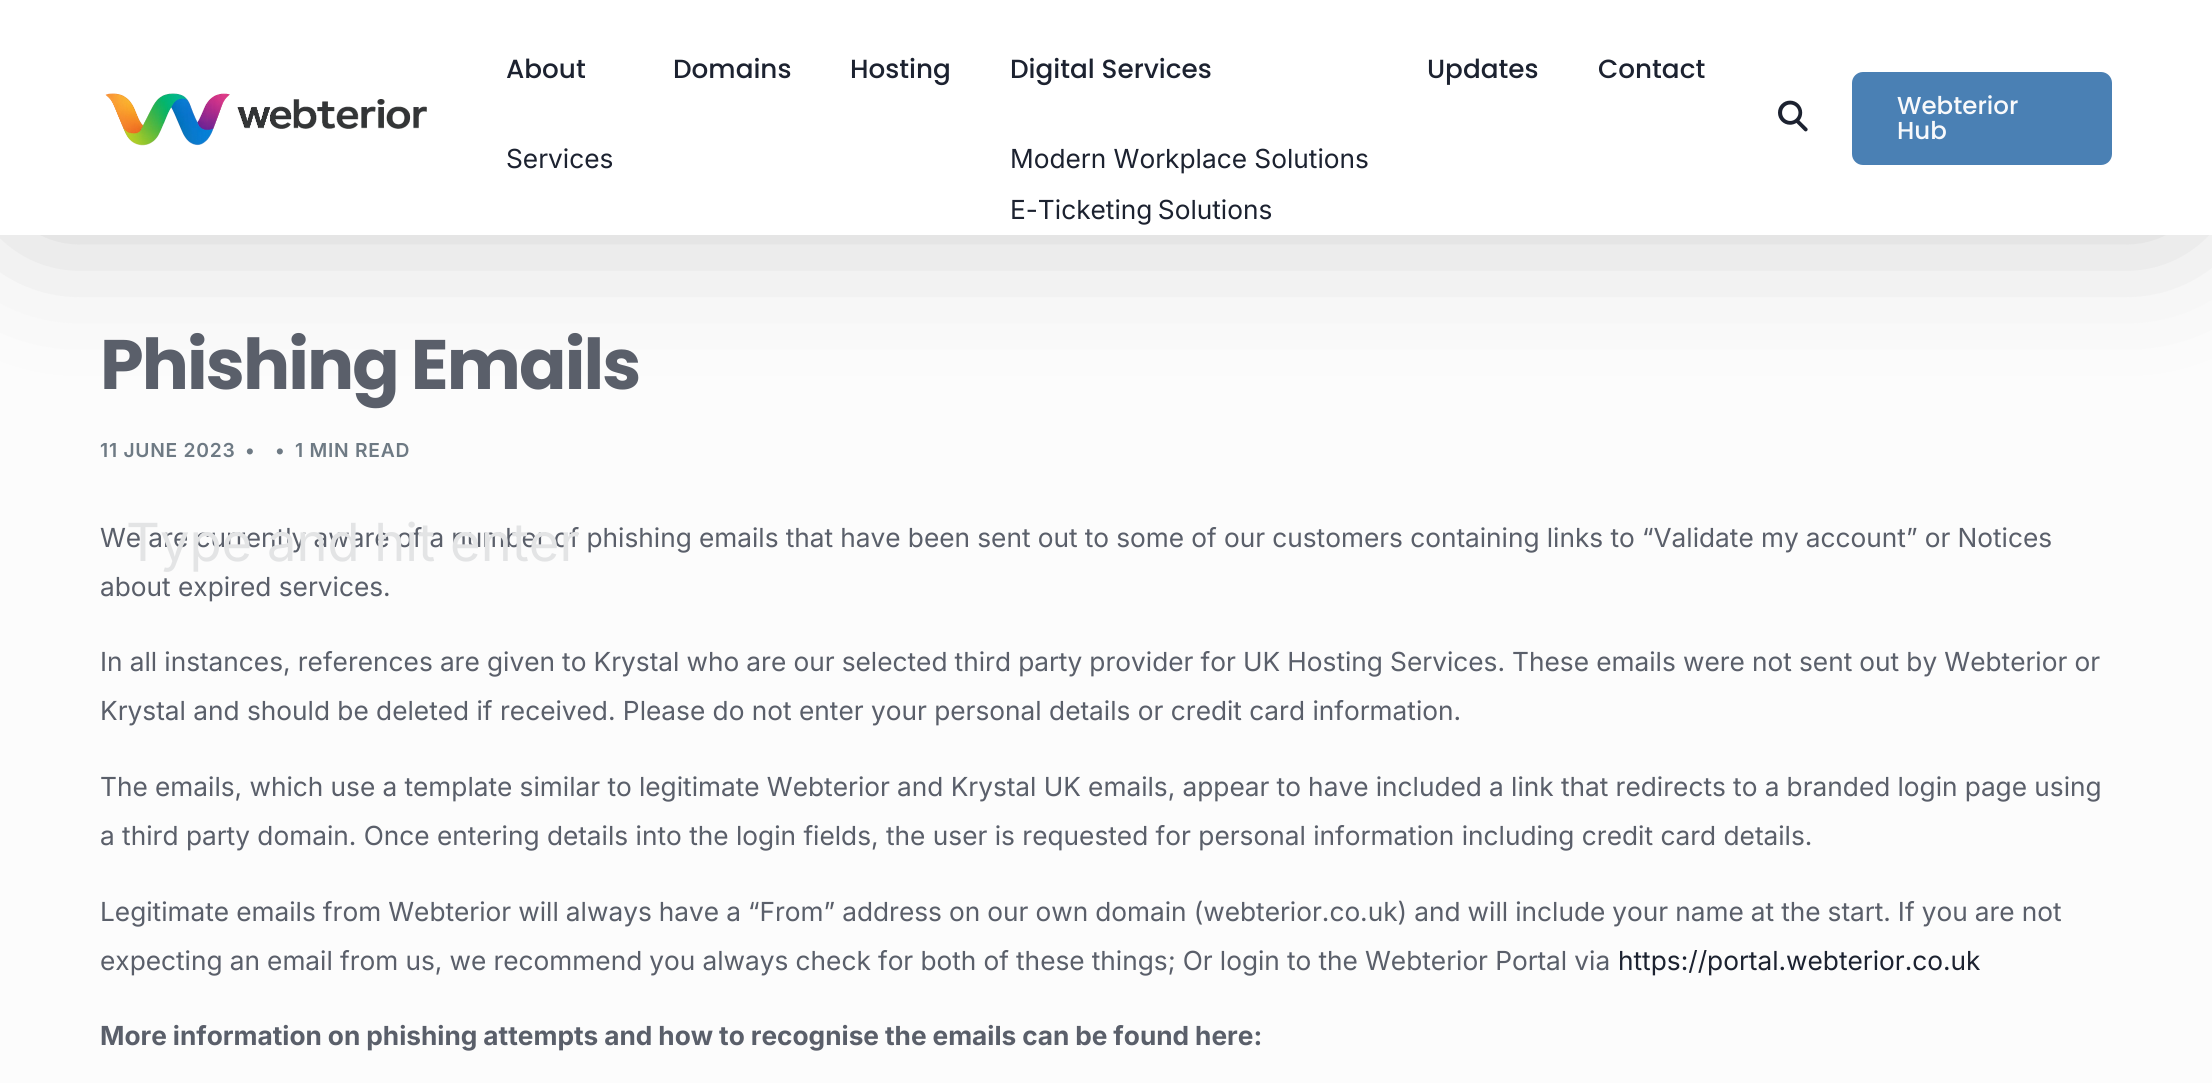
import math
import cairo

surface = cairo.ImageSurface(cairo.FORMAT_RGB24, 2212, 1083)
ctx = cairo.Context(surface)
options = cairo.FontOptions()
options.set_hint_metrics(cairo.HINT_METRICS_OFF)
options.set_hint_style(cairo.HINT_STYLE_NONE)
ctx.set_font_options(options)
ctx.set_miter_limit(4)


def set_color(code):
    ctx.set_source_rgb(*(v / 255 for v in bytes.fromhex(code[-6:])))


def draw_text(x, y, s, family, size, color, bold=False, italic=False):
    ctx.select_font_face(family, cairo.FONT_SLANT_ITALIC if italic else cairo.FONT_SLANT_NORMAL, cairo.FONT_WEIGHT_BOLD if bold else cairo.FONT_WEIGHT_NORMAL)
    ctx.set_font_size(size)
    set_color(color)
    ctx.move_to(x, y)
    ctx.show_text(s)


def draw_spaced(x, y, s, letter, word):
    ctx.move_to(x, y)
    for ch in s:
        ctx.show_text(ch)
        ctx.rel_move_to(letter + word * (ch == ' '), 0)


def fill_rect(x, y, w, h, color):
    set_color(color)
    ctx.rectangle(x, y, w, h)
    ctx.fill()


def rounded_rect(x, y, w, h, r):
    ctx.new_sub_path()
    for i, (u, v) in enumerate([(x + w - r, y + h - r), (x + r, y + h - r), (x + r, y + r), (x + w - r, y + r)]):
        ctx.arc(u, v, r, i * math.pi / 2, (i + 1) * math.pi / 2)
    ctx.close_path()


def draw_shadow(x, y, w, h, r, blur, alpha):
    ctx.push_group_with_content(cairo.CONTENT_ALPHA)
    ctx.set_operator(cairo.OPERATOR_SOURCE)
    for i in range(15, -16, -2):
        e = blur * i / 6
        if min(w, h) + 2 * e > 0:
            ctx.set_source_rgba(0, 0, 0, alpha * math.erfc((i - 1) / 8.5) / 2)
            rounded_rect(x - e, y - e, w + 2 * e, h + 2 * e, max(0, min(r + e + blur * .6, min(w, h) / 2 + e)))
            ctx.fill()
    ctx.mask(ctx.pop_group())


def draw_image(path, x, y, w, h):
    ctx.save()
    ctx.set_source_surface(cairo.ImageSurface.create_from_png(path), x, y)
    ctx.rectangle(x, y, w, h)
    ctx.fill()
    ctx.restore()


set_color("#fcfcfc")
ctx.paint()
set_color("#000000")
draw_shadow(32, 40, 2142, 165, 0, 79, 0.25)
fill_rect(0, 0, 2212, 235, "#ffffff")
draw_image("assets/img1.png", 105, 93, 322, 53)
draw_text(506, 78, "About", "Poppins Medium", 26.25, "#1c2230")
draw_text(506, 168, "Services", "Inter", 26.25, "#1c2230")
draw_text(673, 78, "Domains", "Poppins Medium", 26.25, "#1c2230")
draw_text(850, 78, "Hosting", "Poppins Medium", 26.25, "#1c2230")
draw_text(1010, 78, "Digital Services", "Poppins Medium", 26.25, "#1c2230")
draw_text(1010, 168, "Modern Workplace Solutions", "Inter", 26.25, "#1c2230")
draw_spaced(1010, 219, "E-Ticketing Solutions", 0, -2)
draw_text(1427, 78, "Updates", "Poppins Medium", 26.25, "#1c2230")
draw_text(1598, 78, "Contact", "Poppins Medium", 26.25, "#1c2230")
draw_image("assets/img2.png", 1778, 100, 30, 32)
set_color("#4a80b4")
rounded_rect(1852, 72, 260, 93, 11)
ctx.fill()
draw_text(1897, 114, "Webterior", "Poppins Medium", 24.5, "#f8f9fb")
draw_text(1897, 139, "Hub", "Poppins Medium", 24.5, "#f8f9fb")
ctx.select_font_face("Poppins", cairo.FONT_SLANT_NORMAL, cairo.FONT_WEIGHT_BOLD)
ctx.set_font_size(70)
set_color("#5a5f6a")
draw_spaced(100, 389, "Phishing Emails", -1.9, 0)
ctx.select_font_face("Inter SemiBold")
ctx.set_font_size(19.25)
set_color("#6e7a84")
draw_spaced(100, 457, "11 JUNE 2023", 0.75, 0)
draw_spaced(245, 457, "•", 0.75, 0)
draw_spaced(275, 457, "•", 0.75, 0)
draw_spaced(295, 457, "1 MIN READ", 0.75, 0)
ctx.select_font_face("Inter")
ctx.set_font_size(26.25)
set_color("#5a5f6a")
draw_spaced(100, 547, "We are currently aware of a number of phishing emails that have been sent out to some of our customers containing links to “Validate my account” or Notices", 0, -0.2)
draw_text(100, 596, "about expired services.", "Inter", 26.25, "#5a5f6a")
draw_spaced(100, 671, "In all instances, references are given to Krystal who are our selected third party provider for UK Hosting Services. These emails were not sent out by Webterior or", 0, -0.25)
draw_text(100, 720, "Krystal and should be deleted if received. Please do not enter your personal details or credit card information.", "Inter", 26.25, "#5a5f6a")
draw_spaced(100, 796, "The emails, which use a template similar to legitimate Webterior and Krystal UK emails, appear to have included a link that redirects to a branded login page using", 0, -0.15)
draw_text(100, 845, "a third party domain. Once entering details into the login fields, the user is requested for personal information including credit card details.", "Inter", 26.25, "#5a5f6a")
draw_spaced(100, 921, "Legitimate emails from Webterior will always have a “From” address on our own domain (webterior.co.uk) and will include your name at the start. If you are not", 0, -0.35)
draw_spaced(100, 970, "expecting an email from us, we recommend you always check for both of these things; Or login to the Webterior Portal via", 0, -0.25)
draw_text(1618, 970, "https://portal.webterior.co.uk", "Inter", 26.25, "#1c2230")
ctx.select_font_face("Inter", cairo.FONT_SLANT_NORMAL, cairo.FONT_WEIGHT_BOLD)
set_color("#5a5f6a")
draw_spaced(100, 1045, "More information on phishing attempts and how to recognise the emails can be found here:", 0, -0.25)
draw_text(126, 561, "Type and hit enter", "Inter", 52.5, "#e3e4e5")
surface.write_to_png("output.png")
